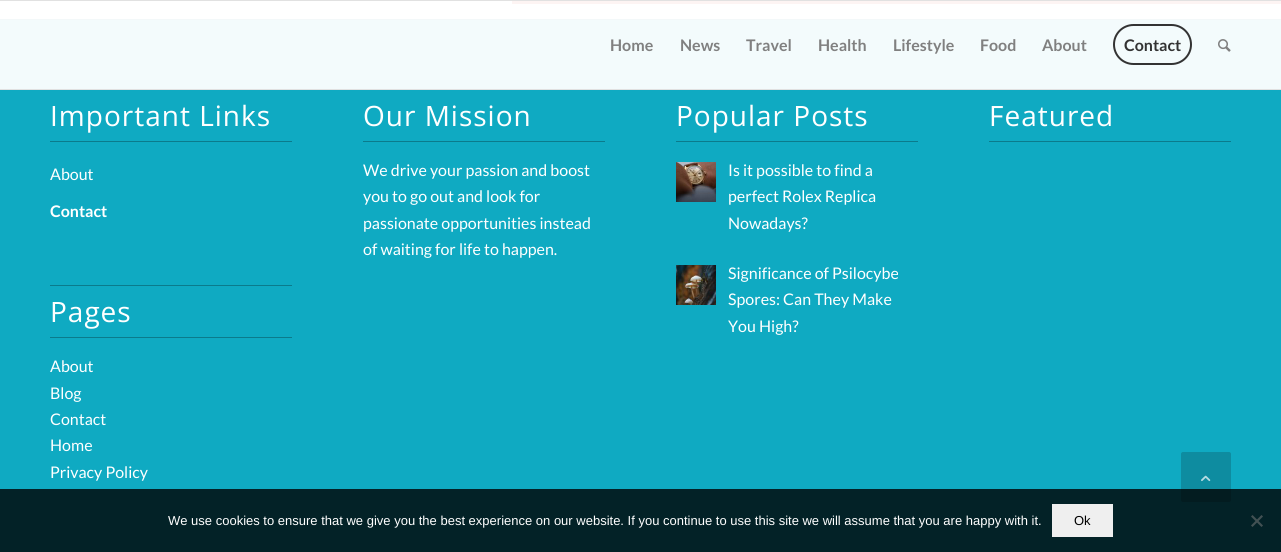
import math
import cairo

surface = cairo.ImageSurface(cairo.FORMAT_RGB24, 1281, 552)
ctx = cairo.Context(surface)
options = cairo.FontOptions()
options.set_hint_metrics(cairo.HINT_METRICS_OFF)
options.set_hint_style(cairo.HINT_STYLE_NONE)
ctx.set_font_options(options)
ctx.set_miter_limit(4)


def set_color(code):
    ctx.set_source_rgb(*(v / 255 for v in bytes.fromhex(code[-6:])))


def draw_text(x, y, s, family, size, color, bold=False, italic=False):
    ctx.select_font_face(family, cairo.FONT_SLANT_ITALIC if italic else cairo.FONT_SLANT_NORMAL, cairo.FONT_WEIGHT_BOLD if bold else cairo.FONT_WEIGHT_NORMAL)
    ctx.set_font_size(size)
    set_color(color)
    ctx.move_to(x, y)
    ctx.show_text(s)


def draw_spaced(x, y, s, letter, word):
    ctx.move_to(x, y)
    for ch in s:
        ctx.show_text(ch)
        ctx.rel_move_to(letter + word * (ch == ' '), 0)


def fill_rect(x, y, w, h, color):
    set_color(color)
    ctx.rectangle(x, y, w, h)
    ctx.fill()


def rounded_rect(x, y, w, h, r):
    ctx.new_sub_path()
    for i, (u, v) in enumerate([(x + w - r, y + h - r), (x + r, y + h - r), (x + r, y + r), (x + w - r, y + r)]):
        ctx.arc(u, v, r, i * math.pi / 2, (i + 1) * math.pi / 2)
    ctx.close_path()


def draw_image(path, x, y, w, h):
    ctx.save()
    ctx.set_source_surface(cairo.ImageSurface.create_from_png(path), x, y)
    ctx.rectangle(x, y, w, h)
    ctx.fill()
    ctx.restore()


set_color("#ffffff")
ctx.paint()
fill_rect(0, 0, 1281, 1, "#e1e1e1")
fill_rect(0, 89, 1281, 1, "#e1e1e1")
fill_rect(0, 20, 1281, 69, "#f3fbfc")
draw_text(610, 51, "Home", "Lato", 16, "#808080", bold=True)
draw_text(680, 51, "News", "Lato", 16, "#808080", bold=True)
draw_text(746, 51, "Travel", "Lato", 16, "#808080", bold=True)
draw_text(818, 51, "Health", "Lato", 16, "#808080", bold=True)
draw_text(893, 51, "Lifestyle", "Lato", 16, "#808080", bold=True)
draw_text(980, 51, "Food", "Lato", 16, "#808080", bold=True)
draw_text(1042, 51, "About", "Lato", 16, "#808080", bold=True)
rounded_rect(1114, 25, 77, 39, 19.5)
set_color("#333333")
ctx.stroke()
draw_text(1124, 51, "Contact", "Lato", 16, "#333333", bold=True)
draw_image("assets/img1.png", 1218, 39, 13, 13)
fill_rect(512, 1, 769, 3, "#fdf4f3")
fill_rect(0, 90, 1281, 462, "#0faac2")
fill_rect(0, 19, 1281, 1, "#f3f8f9")
fill_rect(50, 141, 242, 1, "#0b7b8c")
ctx.select_font_face("Open Sans")
ctx.set_font_size(28)
set_color("#ffffff")
draw_spaced(50, 126, "Important Links", 1, 0)
draw_text(50, 180, "About", "Lato", 16, "#ffffff")
draw_text(50, 217, "Contact", "Lato", 16, "#ffffff", bold=True)
fill_rect(50, 285, 242, 1, "#0b7b8c")
fill_rect(50, 337, 242, 1, "#0b7b8c")
ctx.select_font_face("Open Sans")
ctx.set_font_size(28)
set_color("#ffffff")
draw_spaced(50, 322, "Pages", 1, 0)
draw_text(50, 372, "About", "Lato", 16, "#ffffff")
draw_text(50, 399, "Blog", "Lato", 16, "#ffffff")
draw_text(50, 425, "Contact", "Lato", 16, "#ffffff")
draw_text(50, 451, "Home", "Lato", 16, "#ffffff")
draw_text(50, 478, "Privacy Policy", "Lato", 16, "#ffffff")
fill_rect(363, 141, 242, 1, "#0b7b8c")
ctx.select_font_face("Open Sans")
ctx.set_font_size(28)
set_color("#ffffff")
draw_spaced(363, 126, "Our Mission", 1, 0)
draw_text(363, 176, "We drive your passion and boost", "Lato", 16, "#ffffff")
draw_text(363, 202, "you to go out and look for", "Lato", 16, "#ffffff")
draw_text(363, 229, "passionate opportunities instead", "Lato", 16, "#ffffff")
draw_text(363, 255, "of waiting for life to happen.", "Lato", 16, "#ffffff")
fill_rect(676, 141, 242, 1, "#0b7b8c")
ctx.select_font_face("Open Sans")
ctx.set_font_size(28)
set_color("#ffffff")
draw_spaced(676, 126, "Popular Posts", 1, 0)
draw_image("assets/img2.png", 676, 162, 40, 40)
draw_text(728, 176, "Is it possible to find a", "Lato", 16, "#ffffff")
draw_text(728, 202, "perfect Rolex Replica", "Lato", 16, "#ffffff")
draw_text(728, 229, "Nowadays?", "Lato", 16, "#ffffff")
draw_image("assets/img3.png", 676, 265, 40, 40)
draw_text(728, 279, "Significance of Psilocybe", "Lato", 16, "#ffffff")
draw_text(728, 305, "Spores: Can They Make", "Lato", 16, "#ffffff")
draw_text(728, 332, "You High?", "Lato", 16, "#ffffff")
fill_rect(989, 141, 242, 1, "#0b7b8c")
ctx.select_font_face("Open Sans")
ctx.set_font_size(28)
set_color("#ffffff")
draw_spaced(989, 126, "Featured", 1, 0)
set_color("#0e8ca0")
rounded_rect(1181.5, 452.5, 49, 49, 1.5)
ctx.fill_preserve()
ctx.set_line_width(1)
ctx.stroke()
draw_image("assets/img4.png", 1201, 475, 10, 7)
ctx.set_source_rgba(0, 0, 0, 0.8)
ctx.rectangle(0, 489, 1281, 63)
ctx.fill()
draw_text(168, 525, "We use cookies to ensure that we give you the best experience on our website. If you continue to use this site we will assume that you are happy with it.", "Liberation Sans", 13, "#ffffff")
fill_rect(1052, 504, 61, 33, "#efefef")
draw_text(1074, 525, "Ok", "Liberation Sans", 13, "#000000")
set_color("#425153")
ctx.new_path()
ctx.move_to(1261.5, 515)
ctx.line_to(1263, 516.5)
ctx.line_to(1252.5, 527)
ctx.line_to(1251, 525.5)
ctx.close_path()
ctx.fill()
ctx.new_path()
ctx.move_to(1251, 516.5)
ctx.line_to(1252.5, 515)
ctx.line_to(1263, 525.5)
ctx.line_to(1261.5, 527)
ctx.close_path()
ctx.fill()
surface.write_to_png("output.png")
